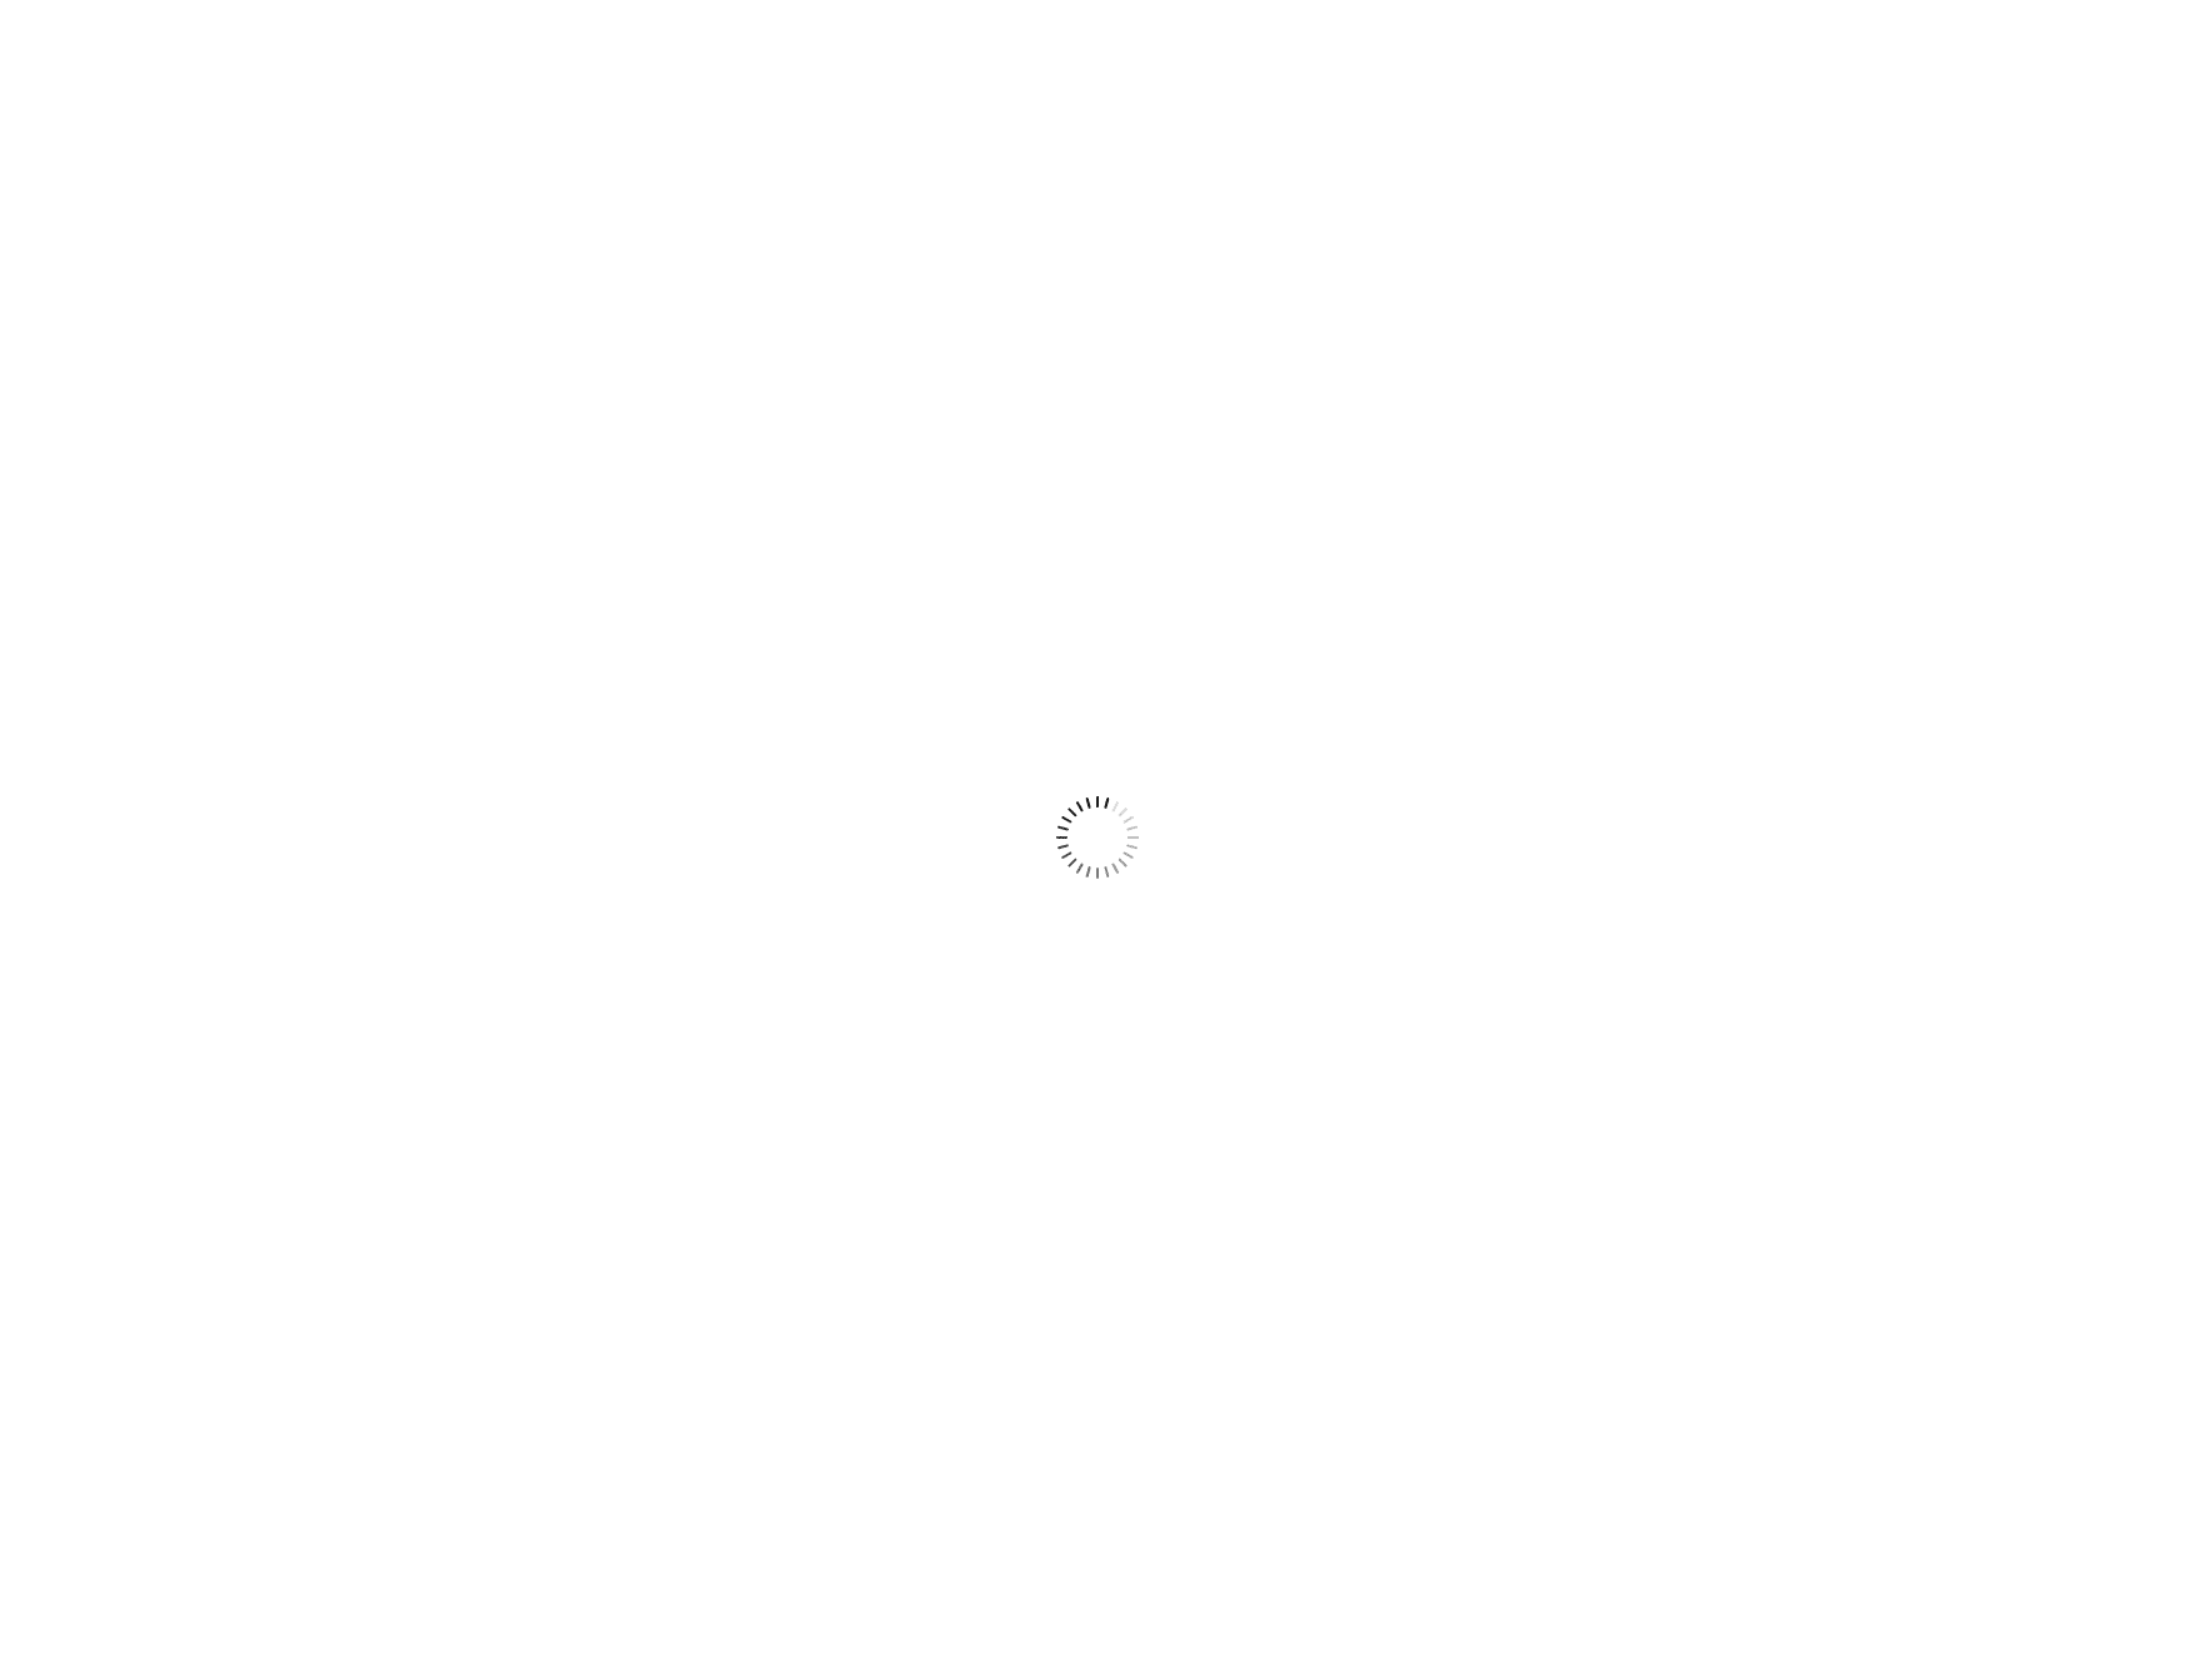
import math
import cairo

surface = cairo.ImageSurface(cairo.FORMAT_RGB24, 2194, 1674)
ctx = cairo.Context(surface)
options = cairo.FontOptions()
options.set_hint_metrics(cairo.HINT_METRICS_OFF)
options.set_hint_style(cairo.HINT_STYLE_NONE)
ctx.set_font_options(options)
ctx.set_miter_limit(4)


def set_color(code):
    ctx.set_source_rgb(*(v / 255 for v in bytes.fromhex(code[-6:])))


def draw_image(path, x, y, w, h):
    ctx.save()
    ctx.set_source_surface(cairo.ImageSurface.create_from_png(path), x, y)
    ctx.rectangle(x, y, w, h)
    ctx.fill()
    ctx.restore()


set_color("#ffffff")
ctx.paint()
draw_image("assets/img1.png", 1056, 796, 83, 83)
surface.write_to_png("output.png")
